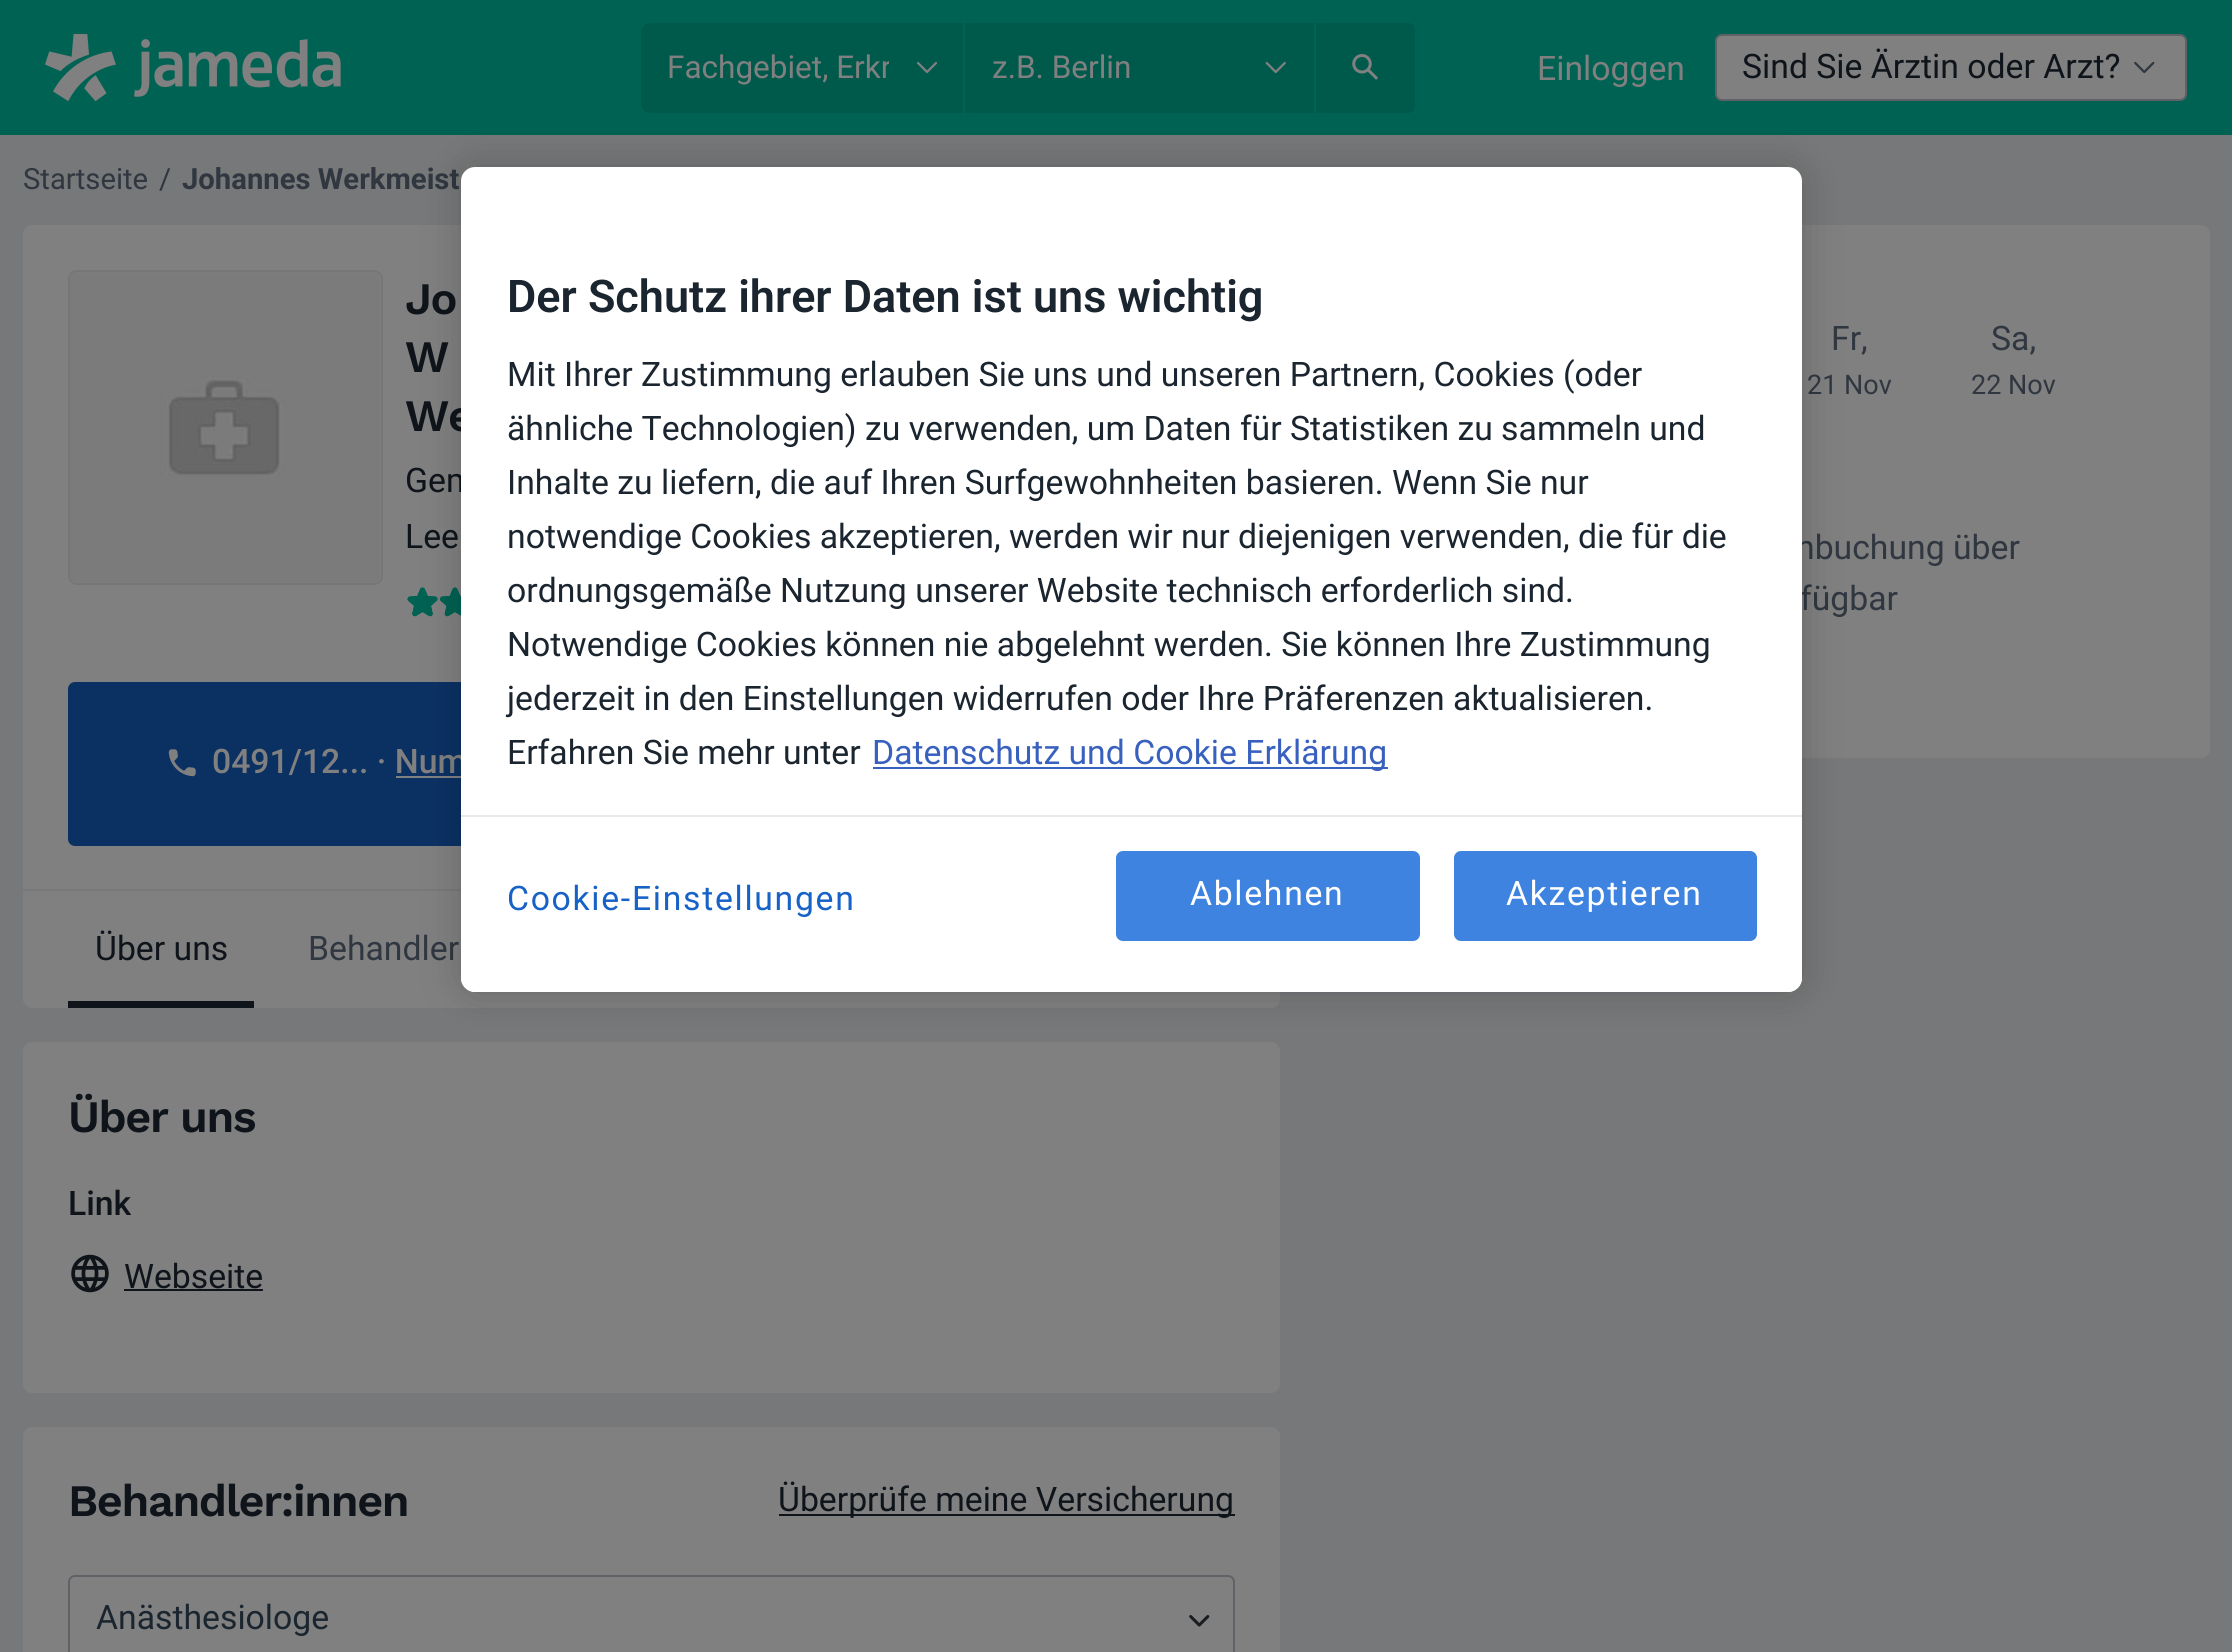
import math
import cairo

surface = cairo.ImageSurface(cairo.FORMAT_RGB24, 2232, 1652)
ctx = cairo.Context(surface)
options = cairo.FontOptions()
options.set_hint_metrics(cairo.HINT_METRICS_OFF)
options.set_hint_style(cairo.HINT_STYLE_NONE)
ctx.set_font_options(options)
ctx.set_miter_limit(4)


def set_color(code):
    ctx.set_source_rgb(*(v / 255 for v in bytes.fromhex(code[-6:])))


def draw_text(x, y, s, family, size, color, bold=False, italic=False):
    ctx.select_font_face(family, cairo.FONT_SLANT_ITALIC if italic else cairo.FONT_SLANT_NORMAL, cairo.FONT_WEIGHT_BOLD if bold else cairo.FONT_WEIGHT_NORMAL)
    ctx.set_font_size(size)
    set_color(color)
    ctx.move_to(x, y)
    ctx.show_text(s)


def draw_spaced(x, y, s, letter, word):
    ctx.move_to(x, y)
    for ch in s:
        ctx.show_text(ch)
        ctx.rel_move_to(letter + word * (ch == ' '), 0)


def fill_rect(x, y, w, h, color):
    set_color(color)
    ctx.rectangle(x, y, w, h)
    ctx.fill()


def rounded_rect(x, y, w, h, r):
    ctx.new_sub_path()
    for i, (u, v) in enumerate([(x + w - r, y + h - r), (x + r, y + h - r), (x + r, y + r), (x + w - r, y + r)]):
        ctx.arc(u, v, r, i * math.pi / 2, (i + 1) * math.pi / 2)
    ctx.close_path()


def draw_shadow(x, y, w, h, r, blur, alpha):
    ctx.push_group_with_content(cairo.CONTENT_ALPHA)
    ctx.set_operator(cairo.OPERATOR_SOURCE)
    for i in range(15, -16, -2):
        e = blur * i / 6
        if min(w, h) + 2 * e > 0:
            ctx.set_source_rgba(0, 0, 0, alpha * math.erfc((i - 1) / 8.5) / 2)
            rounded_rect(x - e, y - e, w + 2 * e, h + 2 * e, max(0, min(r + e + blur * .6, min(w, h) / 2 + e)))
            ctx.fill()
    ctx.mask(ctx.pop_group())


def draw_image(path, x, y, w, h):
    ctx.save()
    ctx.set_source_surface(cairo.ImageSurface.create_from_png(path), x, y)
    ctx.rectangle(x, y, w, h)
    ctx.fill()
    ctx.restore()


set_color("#777879")
ctx.paint()
fill_rect(0, 0, 2232, 135, "#006253")
draw_image("assets/img1.png", 45, 34, 296, 67)
set_color("#005a4c")
ctx.new_path()
ctx.move_to(650, 23)
ctx.line_to(963, 23)
ctx.line_to(963, 113)
ctx.line_to(650, 113)
ctx.curve_to(645, 113, 641, 109, 641, 104)
ctx.line_to(641, 32)
ctx.curve_to(641, 27, 645, 23, 650, 23)
ctx.close_path()
ctx.fill()
ctx.save()
ctx.rectangle(668, 50, 221, 36)
ctx.clip()
draw_text(667, 78, "Fachgebiet, Erkr", "Roboto", 31.5, "#808080")
ctx.restore()
draw_image("assets/img2.png", 916, 61, 22, 13)
fill_rect(965, 23, 349, 90, "#005a4c")
draw_text(992, 78, "z.B. Berlin", "Roboto", 31.5, "#808080")
draw_image("assets/img3.png", 1265, 61, 21, 13)
set_color("#005a4c")
ctx.new_path()
ctx.move_to(1316, 23)
ctx.line_to(1408, 23)
ctx.curve_to(1412, 23, 1415, 26, 1415, 30)
ctx.line_to(1415, 106)
ctx.curve_to(1415, 110, 1412, 113, 1408, 113)
ctx.line_to(1316, 113)
ctx.close_path()
ctx.fill()
draw_image("assets/img4.png", 1352, 54, 26, 26)
draw_text(1537, 80, "Einloggen", "Roboto", 33.75, "#808080")
rounded_rect(1716, 35, 470, 65, 6)
ctx.fill_preserve()
set_color("#5f6266")
ctx.stroke()
draw_text(1742, 78, "Sind Sie Ärztin oder Arzt?", "Roboto", 33.75, "#0e141a")
draw_image("assets/img5.png", 2134, 61, 21, 13)
draw_text(23, 189, "Startseite", "Roboto", 29.25, "#303740")
draw_text(159, 189, "/", "Roboto", 29.25, "#303740")
draw_text(182, 189, "Johannes Werkmeist", "Roboto", 29.25, "#303740", bold=True)
set_color("#808080")
ctx.new_path()
ctx.move_to(32, 225)
ctx.line_to(1271, 225)
ctx.curve_to(1276, 225, 1280, 229, 1280, 234)
ctx.line_to(1280, 891)
ctx.line_to(23, 891)
ctx.line_to(23, 234)
ctx.curve_to(23, 229, 27, 225, 32, 225)
ctx.close_path()
ctx.fill()
fill_rect(23, 889, 438, 2, "#777879")
rounded_rect(69, 271, 313, 313, 8)
set_color("#767676")
ctx.stroke()
draw_image("assets/img6.png", 70, 272, 310, 311)
ctx.select_font_face("Work Sans SemiBold")
ctx.set_font_size(45)
set_color("#0e141a")
draw_spaced(405, 314, "Jo", -1.4, 0)
draw_spaced(405, 372, "W", -1.4, 0)
draw_spaced(405, 431, "We", -1.4, 0)
draw_text(405, 492, "Gem", "Roboto", 33.75, "#0e141a")
draw_text(405, 548, "Lee", "Roboto", 33.75, "#0e141a")
draw_image("assets/img7.png", 407, 587, 54, 30)
draw_image("assets/img8.png", 407, 587, 54, 30)
set_color("#0b3163")
rounded_rect(69, 683, 700, 162, 6)
ctx.fill_preserve()
ctx.stroke()
draw_image("assets/img9.png", 168, 749, 28, 28)
draw_text(212, 773, "0491/12... · Num", "Roboto Medium", 33.75, "#808080")
fill_rect(396, 776, 65, 2, "#808080")
ctx.new_path()
ctx.move_to(23, 891)
ctx.line_to(1280, 891)
ctx.line_to(1280, 999)
ctx.curve_to(1280, 1004, 1276, 1008, 1271, 1008)
ctx.line_to(32, 1008)
ctx.curve_to(27, 1008, 23, 1004, 23, 999)
ctx.close_path()
ctx.fill()
fill_rect(68, 1001, 186, 7, "#0e141a")
draw_text(95, 960, "Über uns", "Roboto", 33.75, "#0e141a")
draw_text(308, 960, "Behandler", "Roboto", 33.75, "#303740")
set_color("#808080")
rounded_rect(23, 1042, 1257, 351, 9)
ctx.fill()
ctx.select_font_face("Work Sans SemiBold")
ctx.set_font_size(45)
set_color("#0e141a")
draw_spaced(68, 1132, "Über uns", -1.4, 0)
draw_text(68, 1215, "Link", "Roboto Medium", 33.75, "#0e141a")
draw_image("assets/img10.png", 71, 1254, 38, 39)
draw_text(124, 1288, "Webseite", "Roboto", 33.75, "#0e141a")
fill_rect(124, 1289, 139, 2, "#0e141a")
set_color("#808080")
rounded_rect(23, 1427, 1257, 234, 9)
ctx.fill()
ctx.select_font_face("Work Sans SemiBold")
ctx.set_font_size(45)
set_color("#0e141a")
draw_spaced(68, 1516, "Behandler:innen", -1.4, 0)
fill_rect(779, 1514, 456, 2, "#0e141a")
draw_text(778, 1511, "Überprüfe meine Versicherung", "Roboto", 33.75, "#0e141a")
rounded_rect(69, 1576, 1165, 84, 6)
set_color("#5f6266")
ctx.stroke()
draw_text(96, 1629, "Anästhesiologe", "Roboto", 33.75, "#1b252f")
draw_image("assets/img11.png", 1189, 1615, 21, 12)
set_color("#808080")
rounded_rect(1325, 225, 885, 533, 9)
ctx.fill()
draw_text(1831, 350, "Fr,", "Roboto", 33.75, "#303740")
draw_text(1807, 394, "21 Nov", "Roboto", 27, "#303740")
draw_text(1991, 350, "Sa,", "Roboto", 33.75, "#303740")
draw_text(1971, 394, "22 Nov", "Roboto", 27, "#303740")
draw_text(1796, 559, "nbuchung über", "Roboto", 33.75, "#303740")
draw_text(1800, 610, "fügbar", "Roboto", 33.75, "#303740")
set_color("#000000")
draw_shadow(461, 167, 1341, 825, 14, 20, 0.2)
set_color("#ffffff")
rounded_rect(461, 167, 1341, 825, 14)
ctx.fill()
draw_text(507, 312, "Der Schutz ihrer Daten ist uns wichtig", "Roboto SemiBold", 45, "#1b252f")
draw_text(507, 386, "Mit Ihrer Zustimmung erlauben Sie uns und unseren Partnern, Cookies (oder", "Roboto", 33.75, "#1b252f")
draw_text(507, 440, "ähnliche Technologien) zu verwenden, um Daten für Statistiken zu sammeln und", "Roboto", 33.75, "#1b252f")
draw_text(507, 494, "Inhalte zu liefern, die auf Ihren Surfgewohnheiten basieren. Wenn Sie nur", "Roboto", 33.75, "#1b252f")
draw_text(507, 548, "notwendige Cookies akzeptieren, werden wir nur diejenigen verwenden, die für die", "Roboto", 33.75, "#1b252f")
draw_text(507, 602, "ordnungsgemäße Nutzung unserer Website technisch erforderlich sind.", "Roboto", 33.75, "#1b252f")
draw_text(507, 656, "Notwendige Cookies können nie abgelehnt werden. Sie können Ihre Zustimmung", "Roboto", 33.75, "#1b252f")
draw_text(507, 710, "jederzeit in den Einstellungen widerrufen oder Ihre Präferenzen aktualisieren.", "Roboto", 33.75, "#1b252f")
draw_text(507, 764, "Erfahren Sie mehr unter", "Roboto", 33.75, "#1b252f")
fill_rect(873, 767, 515, 2, "#3860be")
draw_text(872, 764, "Datenschutz und Cookie Erklärung", "Roboto", 33.75, "#3860be")
set_color("#ffffff")
ctx.new_path()
ctx.move_to(461, 815)
ctx.line_to(1802, 815)
ctx.line_to(1802, 978)
ctx.curve_to(1802, 985.5, 1795.5, 992, 1788, 992)
ctx.line_to(475, 992)
ctx.curve_to(467.5, 992, 461, 985.5, 461, 978)
ctx.close_path()
ctx.fill()
fill_rect(461, 815, 1341, 2, "#e9e9e9")
set_color("#1662c6")
draw_spaced(507, 910, "Cookie-Einstellungen", 1.7, 0)
set_color("#3d83df")
rounded_rect(1117, 852, 302, 88, 6)
ctx.fill_preserve()
ctx.stroke()
set_color("#ffffff")
draw_spaced(1190, 905, "Ablehnen", 1.7, 0)
set_color("#3d83df")
rounded_rect(1455, 852, 301, 88, 6)
ctx.fill_preserve()
ctx.stroke()
set_color("#ffffff")
draw_spaced(1506, 905, "Akzeptieren", 1.7, 0)
surface.write_to_png("output.png")
